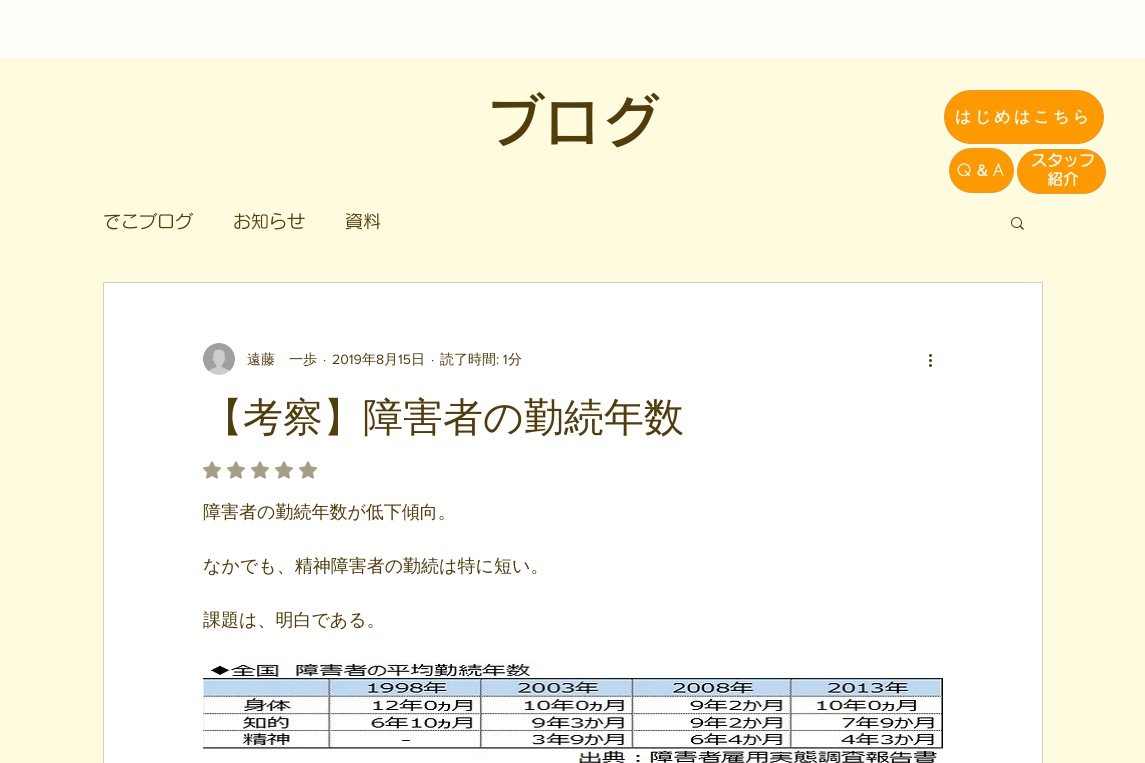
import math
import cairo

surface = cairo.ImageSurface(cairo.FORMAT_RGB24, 1145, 763)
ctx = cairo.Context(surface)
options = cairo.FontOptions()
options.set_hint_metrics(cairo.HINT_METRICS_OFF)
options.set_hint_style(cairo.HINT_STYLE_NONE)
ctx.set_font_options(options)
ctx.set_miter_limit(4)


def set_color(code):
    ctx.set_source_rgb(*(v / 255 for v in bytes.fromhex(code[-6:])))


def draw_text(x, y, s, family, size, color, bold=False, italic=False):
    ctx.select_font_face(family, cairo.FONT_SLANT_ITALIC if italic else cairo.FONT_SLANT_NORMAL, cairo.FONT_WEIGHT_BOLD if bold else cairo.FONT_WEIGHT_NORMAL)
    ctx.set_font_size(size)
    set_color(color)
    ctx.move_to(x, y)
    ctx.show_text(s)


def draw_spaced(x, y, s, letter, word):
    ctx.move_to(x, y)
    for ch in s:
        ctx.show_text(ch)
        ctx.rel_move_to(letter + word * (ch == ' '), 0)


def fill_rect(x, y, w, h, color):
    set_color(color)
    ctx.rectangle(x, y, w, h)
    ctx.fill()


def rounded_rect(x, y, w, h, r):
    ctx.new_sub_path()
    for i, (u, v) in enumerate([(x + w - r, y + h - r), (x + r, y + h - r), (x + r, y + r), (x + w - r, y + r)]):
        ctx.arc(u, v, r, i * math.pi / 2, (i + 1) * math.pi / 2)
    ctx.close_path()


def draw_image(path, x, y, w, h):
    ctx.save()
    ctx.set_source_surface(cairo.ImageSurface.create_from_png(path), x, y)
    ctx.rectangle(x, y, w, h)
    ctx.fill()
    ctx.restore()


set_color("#fffbde")
ctx.paint()
fill_rect(0, 0, 1145, 58, "#fffdf8")
draw_text(485, 144, "ブログ", "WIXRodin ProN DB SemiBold", 58, "#513c0b")
draw_text(103, 228, "でこブログ", "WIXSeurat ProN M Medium", 18, "#513c0b")
draw_text(233, 228, "お知らせ", "WIXSeurat ProN M Medium", 18, "#513c0b")
draw_text(345, 228, "資料", "WIXSeurat ProN M Medium", 18, "#513c0b")
draw_image("assets/img1.png", 1011, 217, 13, 13)
set_color("#ffffff")
ctx.rectangle(103.5, 282.5, 939, 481)
ctx.fill_preserve()
set_color("#d4cec2")
ctx.set_line_width(1)
ctx.stroke()
draw_image("assets/img2.png", 203, 343, 32, 32)
draw_text(247, 364, "遠藤　一歩", "WenQuanYi Zen Hei Medium", 14, "#513c0b")
draw_text(323, 364, "·", "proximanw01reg", 14, "#513c0b")
draw_text(332, 364, "2019", "proximanw01reg", 14, "#513c0b")
draw_text(362, 364, "年", "WenQuanYi Zen Hei Medium", 14, "#513c0b")
draw_text(376, 364, "8", "proximanw01reg", 14, "#513c0b")
draw_text(384, 364, "月", "WenQuanYi Zen Hei Medium", 14, "#513c0b")
draw_text(398, 364, "15", "proximanw01reg", 14, "#513c0b")
draw_text(411, 364, "日", "WenQuanYi Zen Hei Medium", 14, "#513c0b")
draw_text(431, 364, "·", "proximanw01reg", 14, "#513c0b")
draw_text(440, 364, "読了時間", "WenQuanYi Zen Hei Medium", 14, "#513c0b")
draw_text(496, 364, ": 1", "proximanw01reg", 14, "#513c0b")
draw_text(508, 364, "分", "WenQuanYi Zen Hei Medium", 14, "#513c0b")
draw_image("assets/img3.png", 929, 354, 3, 13)
draw_text(203, 431, "【考察】障害者の勤続年数", "WenQuanYi Zen Hei Medium", 40, "#513c0b")
draw_image("assets/img4.png", 203, 461, 18, 18)
draw_image("assets/img4.png", 227, 461, 18, 18)
draw_image("assets/img4.png", 251, 461, 18, 18)
draw_image("assets/img4.png", 275, 461, 18, 18)
draw_image("assets/img4.png", 299, 461, 18, 18)
draw_text(203, 518, "障害者の勤続年数が低下傾向。", "WenQuanYi Zen Hei Medium", 18, "#513c0b")
draw_text(203, 572, "なかでも、精神障害者の勤続は特に短い。", "WenQuanYi Zen Hei Medium", 18, "#513c0b")
draw_text(203, 626, "課題は、明白である。", "WenQuanYi Zen Hei Medium", 18, "#513c0b")
draw_image("assets/img5.png", 203, 661, 740, 102)
set_color("#ff9900")
rounded_rect(943, 89, 162, 56, 28)
ctx.fill_preserve()
set_color("#ffffff")
ctx.set_line_width(2)
ctx.stroke()
ctx.select_font_face("WenQuanYi Zen Hei", cairo.FONT_SLANT_NORMAL, cairo.FONT_WEIGHT_BOLD)
ctx.set_font_size(16)
draw_spaced(955, 122, "はじめはこちら", 3.25, 0)
set_color("#ff9900")
rounded_rect(948, 147, 67, 47, 23.5)
ctx.fill_preserve()
set_color("#ffffff")
ctx.stroke()
set_color("#ff9900")
rounded_rect(1016, 148, 91, 47, 23.5)
ctx.fill_preserve()
set_color("#ffffff")
ctx.stroke()
ctx.select_font_face("futura", cairo.FONT_SLANT_NORMAL, cairo.FONT_WEIGHT_BOLD)
draw_spaced(957, 176, "Q", 3.25, 0)
ctx.select_font_face("WenQuanYi Zen Hei", cairo.FONT_SLANT_NORMAL, cairo.FONT_WEIGHT_BOLD)
draw_spaced(974, 176, "＆", 3.25, 0)
ctx.select_font_face("futura", cairo.FONT_SLANT_NORMAL, cairo.FONT_WEIGHT_BOLD)
draw_spaced(993, 176, "A", 3.25, 0)
draw_text(1031, 166, "スタッフ", "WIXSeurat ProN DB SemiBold", 16, "#ffffff")
draw_text(1047, 185, "紹介", "WIXSeurat ProN DB SemiBold", 16, "#ffffff")
surface.write_to_png("output.png")
